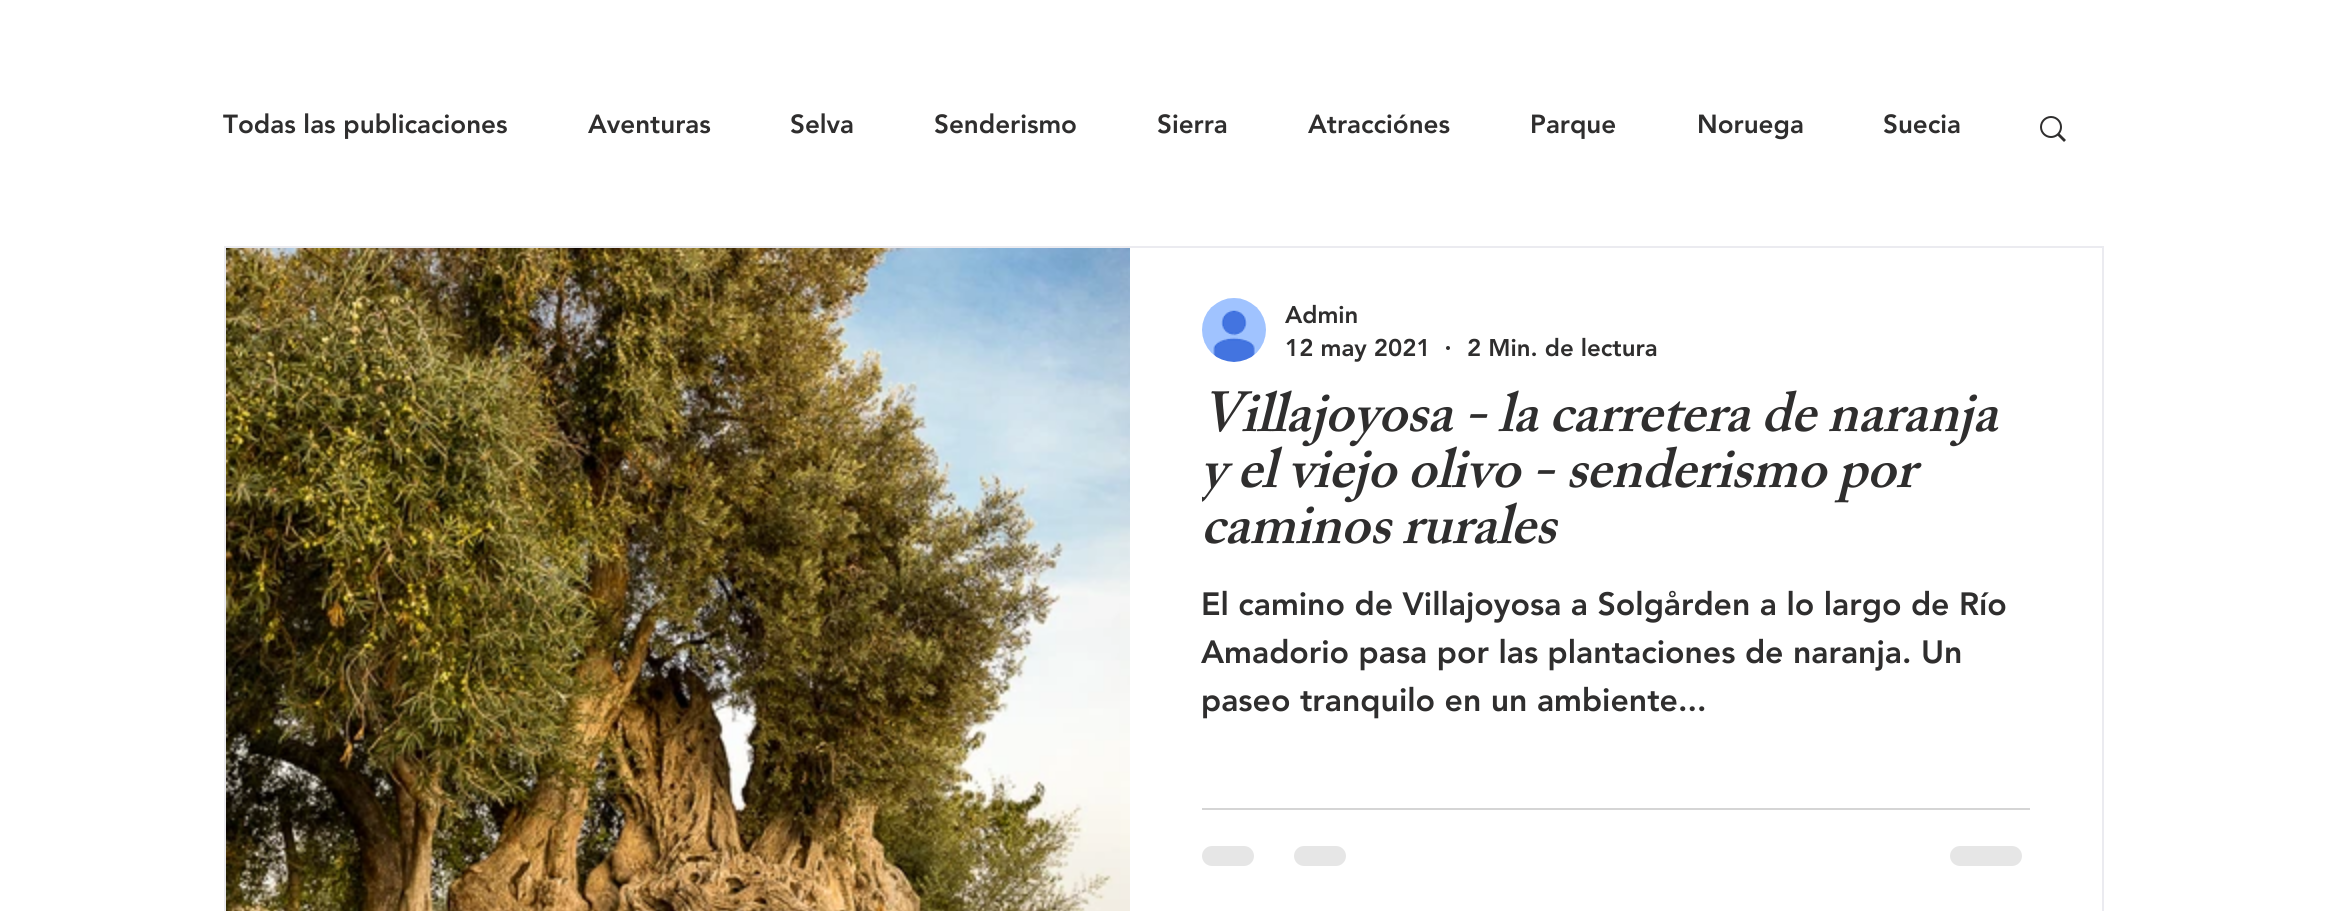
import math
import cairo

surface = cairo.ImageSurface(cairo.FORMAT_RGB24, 2325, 911)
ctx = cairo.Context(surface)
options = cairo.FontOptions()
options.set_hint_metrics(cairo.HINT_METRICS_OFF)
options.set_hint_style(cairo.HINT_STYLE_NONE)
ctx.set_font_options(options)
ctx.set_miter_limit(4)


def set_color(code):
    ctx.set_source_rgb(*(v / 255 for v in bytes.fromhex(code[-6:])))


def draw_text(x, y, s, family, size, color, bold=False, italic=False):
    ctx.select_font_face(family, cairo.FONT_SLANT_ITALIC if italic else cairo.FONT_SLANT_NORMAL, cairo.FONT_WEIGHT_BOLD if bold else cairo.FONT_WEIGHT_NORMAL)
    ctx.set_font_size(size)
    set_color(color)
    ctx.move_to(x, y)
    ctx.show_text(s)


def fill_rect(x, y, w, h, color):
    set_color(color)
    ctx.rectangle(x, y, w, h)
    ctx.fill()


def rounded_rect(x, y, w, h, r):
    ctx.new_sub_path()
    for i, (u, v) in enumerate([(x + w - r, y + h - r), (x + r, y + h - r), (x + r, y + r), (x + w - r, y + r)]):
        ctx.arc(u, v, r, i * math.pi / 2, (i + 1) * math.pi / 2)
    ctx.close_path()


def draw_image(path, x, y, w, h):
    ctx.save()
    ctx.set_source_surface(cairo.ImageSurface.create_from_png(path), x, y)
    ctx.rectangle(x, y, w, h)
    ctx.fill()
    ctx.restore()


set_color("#ffffff")
ctx.paint()
draw_text(223, 133, "Todas las publicaciones", "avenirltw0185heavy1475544 Black", 26, "#2f2e2e")
draw_text(588, 133, "Aventuras", "avenirltw0185heavy1475544 Black", 26, "#2f2e2e")
draw_text(790, 133, "Selva", "avenirltw0185heavy1475544 Black", 26, "#2f2e2e")
draw_text(934, 133, "Senderismo", "avenirltw0185heavy1475544 Black", 26, "#2f2e2e")
draw_text(1157, 133, "Sierra", "avenirltw0185heavy1475544 Black", 26, "#2f2e2e")
draw_text(1308, 133, "Atracciónes", "avenirltw0185heavy1475544 Black", 26, "#2f2e2e")
draw_text(1530, 133, "Parque", "avenirltw0185heavy1475544 Black", 26, "#2f2e2e")
draw_text(1697, 133, "Noruega", "avenirltw0185heavy1475544 Black", 26, "#2f2e2e")
draw_text(1883, 133, "Suecia", "avenirltw0185heavy1475544 Black", 26, "#2f2e2e")
draw_image("assets/img1.png", 2040, 116, 26, 26)
ctx.rectangle(225, 247, 1878, 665)
set_color("#ebebf0")
ctx.stroke()
draw_image("assets/img2.png", 226, 248, 904, 663)
draw_image("assets/img3.png", 1202, 298, 64, 64)
draw_text(1285, 323, "Admin", "avenirltw0185heavy1475544 Black", 24, "#2f2e2e")
draw_text(1285, 356, "12 may 2021", "avenirltw0185heavy1475544 Black", 24, "#2f2e2e")
ctx.new_path()
ctx.arc(1448, 348, 2, 0, 2 * math.pi)
ctx.fill()
draw_text(1467, 356, "2 Min. de lectura", "avenirltw0185heavy1475544 Black", 24, "#2f2e2e")
draw_text(1201, 431, "Villajoyosa - la carretera de naranja", "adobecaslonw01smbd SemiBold", 56, "#2f2e2e", italic=True)
ctx.save()
ctx.rectangle(1202, 390, 828, 168)
ctx.clip()
draw_text(1201, 487, "y el viejo olivo - senderismo por", "adobecaslonw01smbd SemiBold", 56, "#2f2e2e", italic=True)
ctx.restore()
draw_text(1201, 543, "caminos rurales", "adobecaslonw01smbd SemiBold", 56, "#2f2e2e", italic=True)
draw_text(1201, 615, "El camino de Villajoyosa a Solgården a lo largo de Río", "avenirltw0185heavy1475544 Black", 32, "#2f2e2e")
draw_text(1201, 663, "Amadorio pasa por las plantaciones de naranja. Un", "avenirltw0185heavy1475544 Black", 32, "#2f2e2e")
draw_text(1201, 711, "paseo tranquilo en un ambiente...", "avenirltw0185heavy1475544 Black", 32, "#2f2e2e")
fill_rect(1202, 808, 828, 2, "#d5d5d5")
set_color("#e6e6e6")
rounded_rect(1202, 846, 52, 20, 10)
ctx.fill()
rounded_rect(1294, 846, 52, 20, 10)
ctx.fill()
rounded_rect(1950, 846, 72, 20, 10)
ctx.fill()
surface.write_to_png("output.png")
